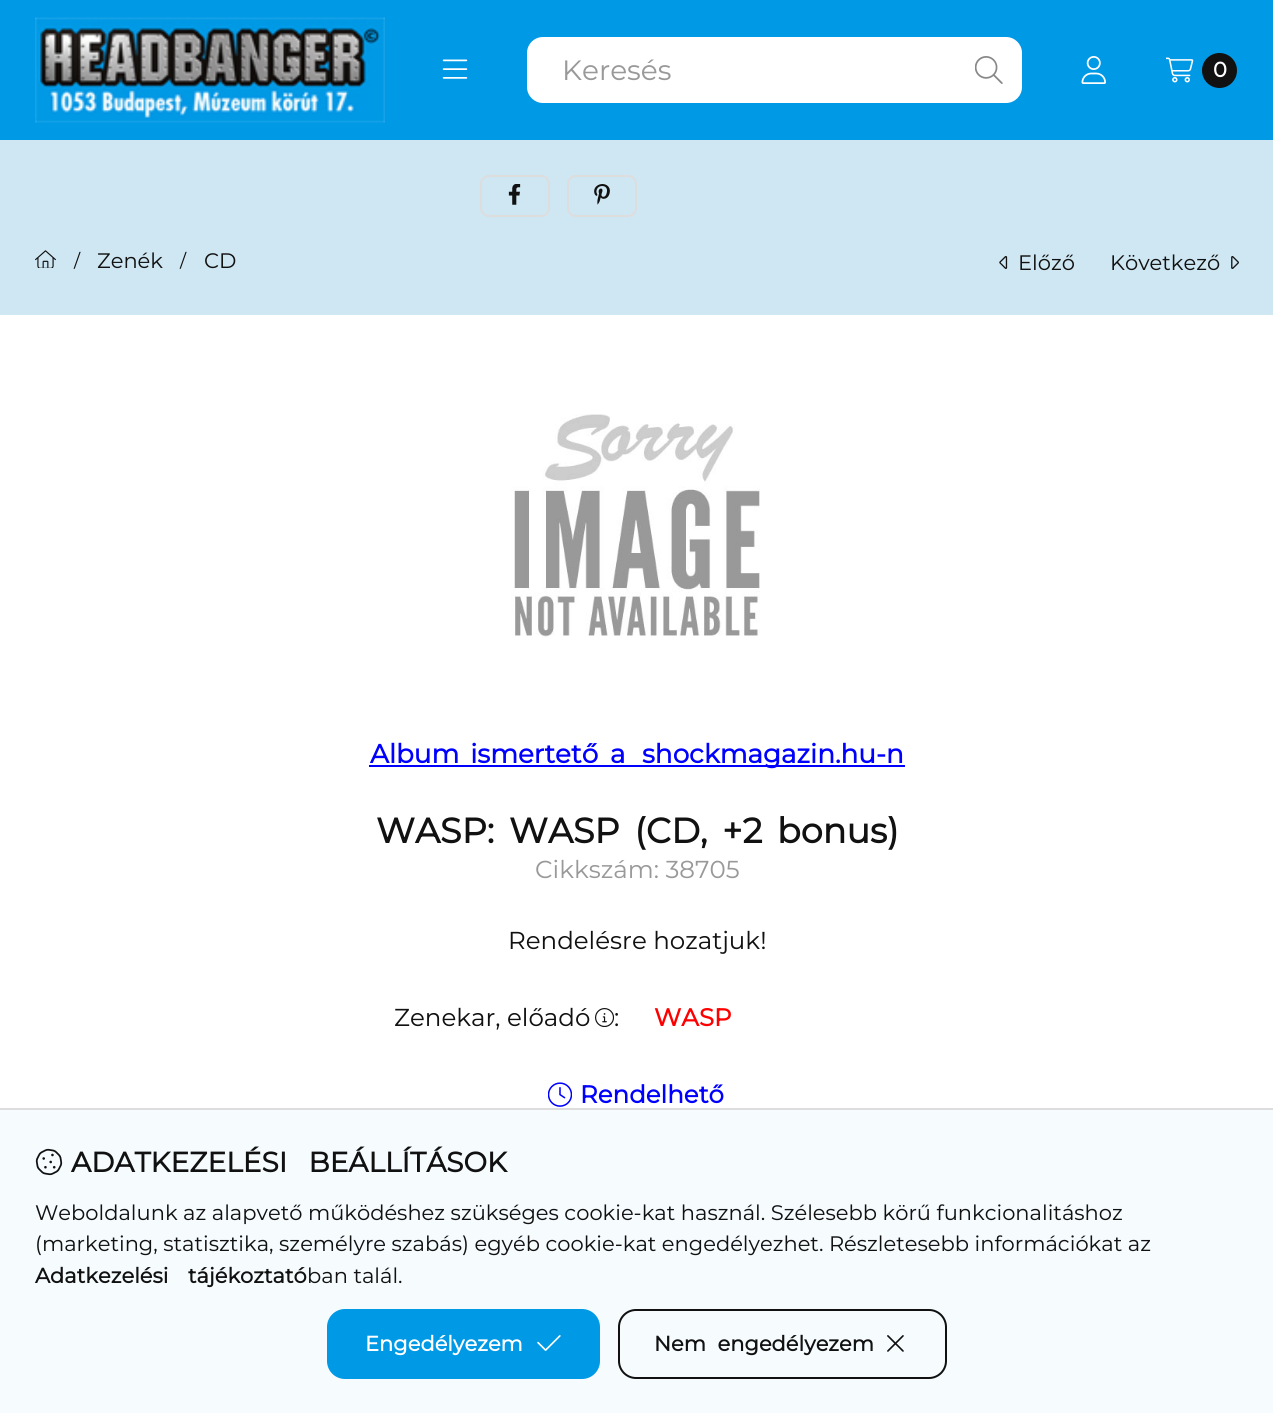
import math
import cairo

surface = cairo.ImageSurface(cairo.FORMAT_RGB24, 1273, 1413)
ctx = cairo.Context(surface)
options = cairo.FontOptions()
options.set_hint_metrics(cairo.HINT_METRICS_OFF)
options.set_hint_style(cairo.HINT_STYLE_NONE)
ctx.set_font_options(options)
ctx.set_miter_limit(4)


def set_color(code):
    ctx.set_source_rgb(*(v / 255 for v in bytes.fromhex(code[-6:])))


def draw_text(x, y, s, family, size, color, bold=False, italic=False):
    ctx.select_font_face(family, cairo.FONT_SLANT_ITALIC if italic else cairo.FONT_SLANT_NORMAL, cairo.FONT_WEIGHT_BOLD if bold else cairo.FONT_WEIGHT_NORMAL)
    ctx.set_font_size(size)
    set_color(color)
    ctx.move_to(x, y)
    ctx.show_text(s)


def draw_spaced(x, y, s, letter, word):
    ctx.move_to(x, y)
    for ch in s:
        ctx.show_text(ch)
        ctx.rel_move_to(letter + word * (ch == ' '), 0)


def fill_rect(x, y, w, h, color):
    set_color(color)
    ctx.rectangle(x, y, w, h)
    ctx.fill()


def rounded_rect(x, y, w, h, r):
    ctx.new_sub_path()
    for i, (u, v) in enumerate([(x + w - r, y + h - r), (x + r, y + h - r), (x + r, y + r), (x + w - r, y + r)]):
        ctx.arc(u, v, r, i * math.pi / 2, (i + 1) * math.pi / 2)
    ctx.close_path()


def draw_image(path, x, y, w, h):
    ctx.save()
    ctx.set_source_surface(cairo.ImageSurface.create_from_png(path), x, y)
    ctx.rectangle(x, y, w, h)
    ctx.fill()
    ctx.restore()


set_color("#cfe7f3")
ctx.paint()
fill_rect(0, 0, 1273, 140, "#0099e5")
draw_image("assets/img1.png", 35, 17, 350, 106)
draw_image("assets/img2.png", 442, 59, 26, 20)
set_color("#ffffff")
rounded_rect(527, 37, 495, 66, 16)
ctx.fill()
draw_text(562, 80, "Keresés", "Montserrat", 28, "#999999")
draw_image("assets/img3.png", 975, 56, 28, 28)
draw_image("assets/img4.png", 1081, 56, 25, 28)
draw_image("assets/img5.png", 1166, 57, 28, 26)
set_color("#111111")
ctx.arc(1219.5, 70.5, 17.5, 0, 2 * math.pi)
ctx.fill()
draw_text(1213, 77, "0", "Montserrat", 21, "#ffffff", bold=True)
rounded_rect(481, 176, 68, 40, 8)
set_color("#dddddd")
ctx.stroke()
draw_image("assets/img6.png", 508, 184, 13, 21)
rounded_rect(568, 176, 68, 40, 8)
ctx.stroke()
draw_image("assets/img7.png", 594, 184, 16, 21)
draw_image("assets/img8.png", 35, 250, 21, 18)
draw_text(74, 267, "/", "Montserrat", 18, "#111111")
draw_text(97, 268, "Zenék", "Montserrat", 21, "#111111")
draw_text(180, 267, "/", "Montserrat", 18, "#111111")
draw_text(204, 268, "CD", "Montserrat", 21, "#111111")
draw_image("assets/img9.png", 999, 256, 9, 13)
draw_text(1018, 270, "Előző", "Montserrat", 21, "#111111")
draw_text(1110, 270, "Következő", "Montserrat", 21, "#111111")
draw_image("assets/img10.png", 1231, 256, 8, 13)
fill_rect(0, 315, 1273, 793, "#ffffff")
draw_image("assets/img11.png", 511, 414, 249, 224)
ctx.select_font_face("Montserrat", cairo.FONT_SLANT_NORMAL, cairo.FONT_WEIGHT_BOLD)
ctx.set_font_size(26.25)
set_color("#0000ff")
draw_spaced(370, 763, "Album ismertető", 0, 4)
fill_rect(369, 765, 536, 2, "#0000ff")
draw_text(610, 763, "a", "Montserrat", 26.25, "#0000ff", bold=True)
draw_text(642, 763, "shockmagazin.hu-n", "Montserrat", 26.25, "#0000ff", bold=True)
ctx.set_font_size(35)
set_color("#111111")
draw_spaced(376, 843, "WASP: WASP (CD, +2 bonus)", 0, 5.5)
draw_text(535, 878, "Cikkszám: 38705", "Montserrat", 24.5, "#999999")
draw_text(508, 949, "Rendelésre hozatjuk!", "Montserrat", 24.5, "#111111")
draw_text(394, 1026, "Zenekar, előadó", "Montserrat", 24.5, "#111111")
draw_image("assets/img12.png", 595, 1008, 19, 19)
draw_text(614, 1026, ":", "Montserrat", 24.5, "#111111")
draw_text(654, 1026, "WASP", "Montserrat", 24.5, "#ff0000", bold=True)
draw_image("assets/img13.png", 548, 1082, 24, 25)
draw_text(580, 1103, "Rendelhető", "Montserrat", 24.5, "#0000ff", bold=True)
fill_rect(0, 1110, 1273, 303, "#f6fbfe")
fill_rect(0, 1108, 1273, 2, "#dddddd")
draw_image("assets/img14.png", 35, 1148, 28, 28)
ctx.set_font_size(28)
set_color("#111111")
draw_spaced(71, 1172, "ADATKEZELÉSI BEÁLLÍTÁSOK", 0, 14)
draw_text(35, 1220, "Weboldalunk az alapvető működéshez szükséges cookie-kat használ. Szélesebb körű funkcionalitáshoz", "Montserrat", 21, "#111111")
draw_text(35, 1251, "(marketing, statisztika, személyre szabás) egyéb cookie-kat engedélyezhet. Részletesebb információkat az", "Montserrat", 21, "#111111")
ctx.select_font_face("Montserrat", cairo.FONT_SLANT_NORMAL, cairo.FONT_WEIGHT_BOLD)
draw_spaced(35, 1283, "Adatkezelési tájékoztató", 0, 14)
draw_text(307, 1283, "ban talál.", "Montserrat", 21, "#111111")
set_color("#0099e5")
rounded_rect(328, 1310, 271, 68, 17)
ctx.fill_preserve()
ctx.stroke()
draw_text(365, 1351, "Engedélyezem", "Montserrat", 21, "#ffffff", bold=True)
draw_image("assets/img15.png", 537, 1335, 24, 16)
rounded_rect(619, 1310, 327, 68, 17)
set_color("#111111")
ctx.stroke()
draw_spaced(654, 1351, "Nem engedélyezem", 0, 6)
draw_image("assets/img16.png", 887, 1335, 17, 17)
surface.write_to_png("output.png")
